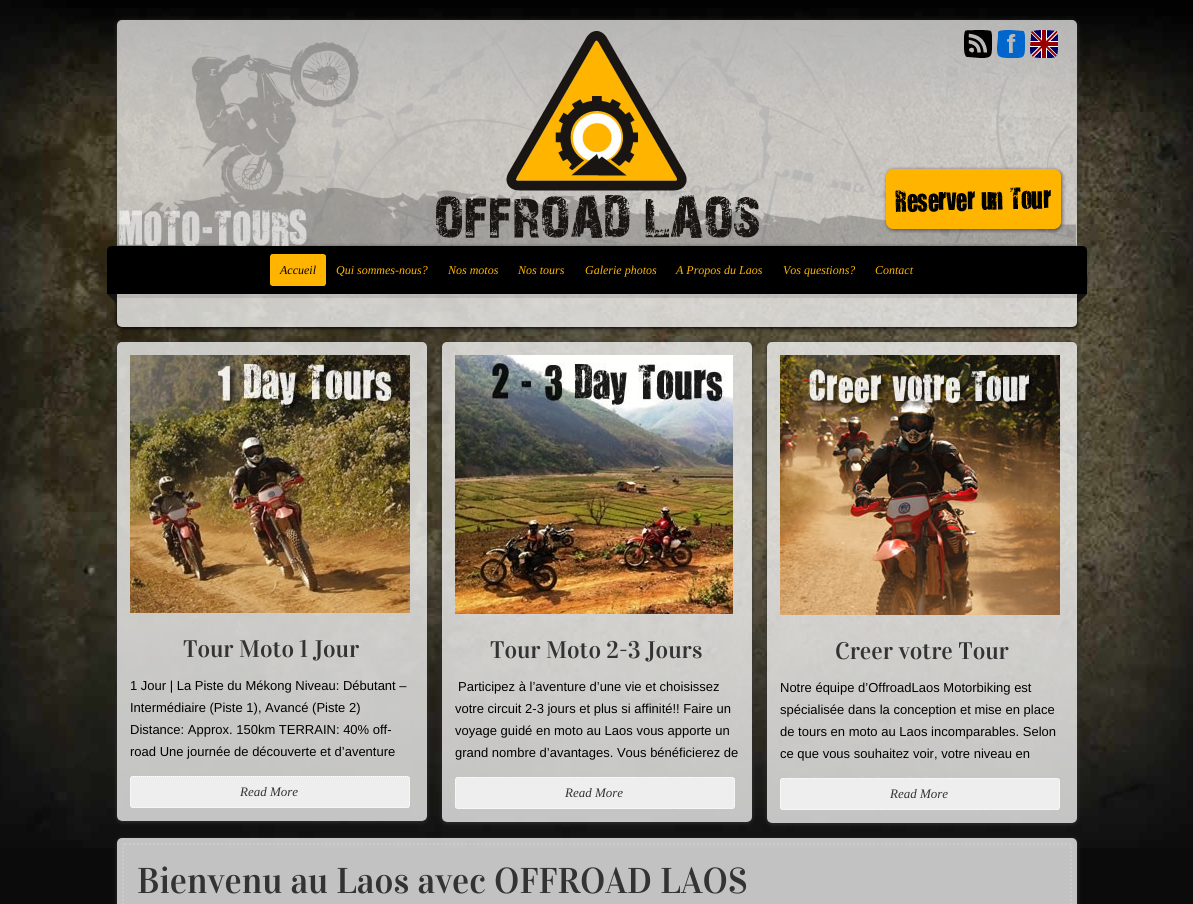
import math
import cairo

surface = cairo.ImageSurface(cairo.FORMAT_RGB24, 1193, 904)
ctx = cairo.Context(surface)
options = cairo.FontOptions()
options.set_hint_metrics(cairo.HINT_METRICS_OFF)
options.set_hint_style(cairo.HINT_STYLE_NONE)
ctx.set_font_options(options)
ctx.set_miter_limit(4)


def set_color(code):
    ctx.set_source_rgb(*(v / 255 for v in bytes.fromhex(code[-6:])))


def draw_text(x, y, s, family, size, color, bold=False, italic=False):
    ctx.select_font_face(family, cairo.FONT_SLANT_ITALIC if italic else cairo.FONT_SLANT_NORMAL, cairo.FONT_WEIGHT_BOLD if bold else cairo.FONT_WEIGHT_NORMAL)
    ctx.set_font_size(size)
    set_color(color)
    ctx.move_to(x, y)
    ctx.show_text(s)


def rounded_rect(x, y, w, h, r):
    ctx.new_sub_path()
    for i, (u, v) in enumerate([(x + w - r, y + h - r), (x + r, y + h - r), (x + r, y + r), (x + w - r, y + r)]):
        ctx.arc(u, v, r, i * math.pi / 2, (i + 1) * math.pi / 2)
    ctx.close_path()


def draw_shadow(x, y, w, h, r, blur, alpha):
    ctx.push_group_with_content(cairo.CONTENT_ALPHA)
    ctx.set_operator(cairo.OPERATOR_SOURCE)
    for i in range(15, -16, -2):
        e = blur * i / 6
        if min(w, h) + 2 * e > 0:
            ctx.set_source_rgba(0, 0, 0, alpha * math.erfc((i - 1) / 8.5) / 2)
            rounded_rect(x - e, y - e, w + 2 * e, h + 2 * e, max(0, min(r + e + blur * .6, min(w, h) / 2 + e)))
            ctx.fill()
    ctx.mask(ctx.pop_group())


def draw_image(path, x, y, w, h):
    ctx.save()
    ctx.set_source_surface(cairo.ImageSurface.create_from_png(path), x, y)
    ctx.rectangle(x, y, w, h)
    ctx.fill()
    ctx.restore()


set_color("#0b0b0b")
ctx.paint()
draw_image("assets/img1.png", 0, 0, 1193, 848)
set_color("#333333")
draw_shadow(117, 21, 960, 226, 5, 2, 1)
draw_image("assets/img2.png", 117, 20, 960, 226)
draw_image("assets/img3.png", 964, 30, 28, 28)
draw_image("assets/img4.png", 997, 30, 28, 28)
draw_image("assets/img5.png", 1030, 30, 28, 28)
draw_image("assets/img6.png", 883, 166, 183, 67)
ctx.save()
ctx.set_fill_rule(cairo.FILL_RULE_EVEN_ODD)
ctx.new_path()
ctx.move_to(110, 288)
ctx.line_to(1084, 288)
ctx.line_to(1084, 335)
ctx.line_to(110, 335)
ctx.close_path()
ctx.move_to(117, 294)
ctx.line_to(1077, 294)
ctx.line_to(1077, 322)
ctx.curve_to(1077, 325, 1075, 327, 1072, 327)
ctx.line_to(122, 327)
ctx.curve_to(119, 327, 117, 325, 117, 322)
ctx.close_path()
ctx.clip()
set_color("#000000")
draw_shadow(117, 295, 960, 33, 5, 2, 1)
ctx.restore()
set_color("#000000")
ctx.new_path()
ctx.move_to(112, 246)
ctx.line_to(1082, 246)
ctx.curve_to(1085, 246, 1087, 248, 1087, 251)
ctx.line_to(1087, 294)
ctx.line_to(107, 294)
ctx.line_to(107, 251)
ctx.curve_to(107, 248, 109, 246, 112, 246)
ctx.close_path()
ctx.fill()
set_color("#ffb400")
rounded_rect(270, 254, 56, 32, 3)
ctx.fill()
ctx.new_path()
ctx.move_to(273, 254.5)
ctx.line_to(323, 254.5)
ctx.curve_to(324.5, 254.5, 325.5, 255.5, 325.5, 257)
ctx.line_to(325.5, 283)
ctx.curve_to(325.5, 284.5, 324.5, 285.5, 323, 285.5)
ctx.line_to(273, 285.5)
ctx.curve_to(271.5, 285.5, 270.5, 284.5, 270.5, 283)
ctx.line_to(270.5, 257)
ctx.curve_to(270.5, 255.5, 271.5, 254.5, 273, 254.5)
ctx.close_path()
ctx.set_line_width(1)
ctx.set_dash([1, 1])
ctx.stroke()
draw_text(280, 274, "Accueil", "Liberation Serif", 12, "#000000", italic=True)
draw_text(336, 274, "Qui sommes-nous?", "Liberation Serif", 12, "#ffb400", italic=True)
draw_text(448, 274, "Nos motos", "Liberation Serif", 12, "#ffb400", italic=True)
draw_text(518, 274, "Nos tours", "Liberation Serif", 12, "#ffb400", italic=True)
draw_text(585, 274, "Galerie photos", "Liberation Serif", 12, "#ffb400", italic=True)
draw_text(676, 274, "A Propos du Laos", "Liberation Serif", 12, "#ffb400", italic=True)
draw_text(783, 274, "Vos questions?", "Liberation Serif", 12, "#ffb400", italic=True)
draw_text(875, 274, "Contact", "Liberation Serif", 12, "#ffb400", italic=True)
draw_image("assets/img8.png", 117, 294, 960, 33)
draw_image("assets/img7.png", 107, 294, 980, 10)
ctx.save()
ctx.set_fill_rule(cairo.FILL_RULE_EVEN_ODD)
ctx.new_path()
ctx.move_to(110, 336)
ctx.line_to(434, 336)
ctx.line_to(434, 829)
ctx.line_to(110, 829)
ctx.close_path()
ctx.move_to(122, 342)
ctx.line_to(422, 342)
ctx.curve_to(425, 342, 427, 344, 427, 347)
ctx.line_to(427, 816)
ctx.curve_to(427, 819, 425, 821, 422, 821)
ctx.line_to(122, 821)
ctx.curve_to(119, 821, 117, 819, 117, 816)
ctx.line_to(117, 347)
ctx.curve_to(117, 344, 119, 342, 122, 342)
ctx.close_path()
ctx.clip()
set_color("#333333")
draw_shadow(117, 343, 310, 479, 5, 2, 1)
ctx.restore()
draw_image("assets/img9.png", 117, 342, 310, 479)
draw_image("assets/img10.png", 130, 355, 280, 258)
draw_text(183, 657, "Tour Moto 1 Jour", "Vidaloka", 24, "#333333")
draw_text(130, 690, "1 Jour | La Piste du Mékong Niveau: Débutant –", "Liberation Sans", 13, "#000000")
draw_text(130, 712, "Intermédiaire (Piste 1), Avancé (Piste 2)", "Liberation Sans", 13, "#000000")
draw_text(130, 734, "Distance: Approx. 150km TERRAIN: 40% off-", "Liberation Sans", 13, "#000000")
draw_text(130, 756, "road Une journée de découverte et d’aventure", "Liberation Sans", 13, "#000000")
set_color("#eeeeee")
rounded_rect(130, 776, 280, 32, 3)
ctx.fill()
ctx.new_path()
ctx.move_to(133, 776.5)
ctx.line_to(407, 776.5)
ctx.curve_to(408.5, 776.5, 409.5, 777.5, 409.5, 779)
ctx.line_to(409.5, 805)
ctx.curve_to(409.5, 806.5, 408.5, 807.5, 407, 807.5)
ctx.line_to(133, 807.5)
ctx.curve_to(131.5, 807.5, 130.5, 806.5, 130.5, 805)
ctx.line_to(130.5, 779)
ctx.curve_to(130.5, 777.5, 131.5, 776.5, 133, 776.5)
ctx.close_path()
set_color("#ffffff")
ctx.stroke()
draw_text(240, 796, "Read More", "Liberation Serif", 13, "#333333", italic=True)
ctx.save()
ctx.set_fill_rule(cairo.FILL_RULE_EVEN_ODD)
ctx.new_path()
ctx.move_to(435, 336)
ctx.line_to(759, 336)
ctx.line_to(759, 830)
ctx.line_to(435, 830)
ctx.close_path()
ctx.move_to(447, 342)
ctx.line_to(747, 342)
ctx.curve_to(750, 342, 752, 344, 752, 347)
ctx.line_to(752, 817)
ctx.curve_to(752, 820, 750, 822, 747, 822)
ctx.line_to(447, 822)
ctx.curve_to(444, 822, 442, 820, 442, 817)
ctx.line_to(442, 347)
ctx.curve_to(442, 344, 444, 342, 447, 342)
ctx.close_path()
ctx.clip()
set_color("#333333")
draw_shadow(442, 343, 310, 480, 5, 2, 1)
ctx.restore()
draw_image("assets/img11.png", 442, 342, 310, 480)
draw_image("assets/img12.png", 455, 355, 278, 259)
draw_text(490, 658, "Tour Moto 2-3 Jours", "Vidaloka", 24, "#333333")
draw_text(458, 691, "Participez à l’aventure d’une vie et choisissez", "Liberation Sans", 13, "#000000")
draw_text(455, 713, "votre circuit 2-3 jours et plus si affinité!! Faire un", "Liberation Sans", 13, "#000000")
draw_text(455, 735, "voyage guidé en moto au Laos vous apporte un", "Liberation Sans", 13, "#000000")
draw_text(455, 757, "grand nombre d’avantages. Vous bénéficierez de", "Liberation Sans", 13, "#000000")
set_color("#eeeeee")
rounded_rect(455, 777, 280, 32, 3)
ctx.fill()
ctx.new_path()
ctx.move_to(458, 777.5)
ctx.line_to(732, 777.5)
ctx.curve_to(733.5, 777.5, 734.5, 778.5, 734.5, 780)
ctx.line_to(734.5, 806)
ctx.curve_to(734.5, 807.5, 733.5, 808.5, 732, 808.5)
ctx.line_to(458, 808.5)
ctx.curve_to(456.5, 808.5, 455.5, 807.5, 455.5, 806)
ctx.line_to(455.5, 780)
ctx.curve_to(455.5, 778.5, 456.5, 777.5, 458, 777.5)
ctx.close_path()
set_color("#ffffff")
ctx.stroke()
draw_text(565, 797, "Read More", "Liberation Serif", 13, "#333333", italic=True)
ctx.save()
ctx.set_fill_rule(cairo.FILL_RULE_EVEN_ODD)
ctx.new_path()
ctx.move_to(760, 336)
ctx.line_to(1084, 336)
ctx.line_to(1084, 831)
ctx.line_to(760, 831)
ctx.close_path()
ctx.move_to(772, 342)
ctx.line_to(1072, 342)
ctx.curve_to(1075, 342, 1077, 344, 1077, 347)
ctx.line_to(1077, 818)
ctx.curve_to(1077, 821, 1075, 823, 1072, 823)
ctx.line_to(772, 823)
ctx.curve_to(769, 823, 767, 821, 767, 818)
ctx.line_to(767, 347)
ctx.curve_to(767, 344, 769, 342, 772, 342)
ctx.close_path()
ctx.clip()
set_color("#333333")
draw_shadow(767, 343, 310, 481, 5, 2, 1)
ctx.restore()
draw_image("assets/img13.png", 767, 342, 310, 481)
draw_image("assets/img14.png", 780, 355, 280, 260)
draw_text(835, 659, "Creer votre Tour", "Vidaloka", 24, "#333333")
draw_text(780, 692, "Notre équipe d’OffroadLaos Motorbiking est", "Liberation Sans", 13, "#000000")
draw_text(780, 714, "spécialisée dans la conception et mise en place", "Liberation Sans", 13, "#000000")
draw_text(780, 736, "de tours en moto au Laos incomparables. Selon", "Liberation Sans", 13, "#000000")
draw_text(780, 758, "ce que vous souhaitez voir, votre niveau en", "Liberation Sans", 13, "#000000")
set_color("#eeeeee")
rounded_rect(780, 778, 280, 32, 3)
ctx.fill()
ctx.new_path()
ctx.move_to(783, 778.5)
ctx.line_to(1057, 778.5)
ctx.curve_to(1058.5, 778.5, 1059.5, 779.5, 1059.5, 781)
ctx.line_to(1059.5, 807)
ctx.curve_to(1059.5, 808.5, 1058.5, 809.5, 1057, 809.5)
ctx.line_to(783, 809.5)
ctx.curve_to(781.5, 809.5, 780.5, 808.5, 780.5, 807)
ctx.line_to(780.5, 781)
ctx.curve_to(780.5, 779.5, 781.5, 778.5, 783, 778.5)
ctx.close_path()
set_color("#ffffff")
ctx.stroke()
draw_text(890, 798, "Read More", "Liberation Serif", 13, "#333333", italic=True)
ctx.save()
ctx.set_fill_rule(cairo.FILL_RULE_EVEN_ODD)
ctx.new_path()
ctx.move_to(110, 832)
ctx.line_to(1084, 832)
ctx.line_to(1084, 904)
ctx.line_to(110, 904)
ctx.close_path()
ctx.move_to(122, 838)
ctx.line_to(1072, 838)
ctx.curve_to(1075, 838, 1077, 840, 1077, 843)
ctx.line_to(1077, 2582)
ctx.curve_to(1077, 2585, 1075, 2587, 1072, 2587)
ctx.line_to(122, 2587)
ctx.curve_to(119, 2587, 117, 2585, 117, 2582)
ctx.line_to(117, 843)
ctx.curve_to(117, 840, 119, 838, 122, 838)
ctx.close_path()
ctx.clip()
set_color("#333333")
draw_shadow(117, 839, 960, 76, 5, 2, 1)
ctx.restore()
draw_image("assets/img15.png", 117, 838, 960, 66)
ctx.new_path()
ctx.move_to(125, 844)
ctx.line_to(1069, 844)
ctx.curve_to(1070, 844, 1071, 845, 1071, 846)
ctx.line_to(1071, 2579)
ctx.curve_to(1071, 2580, 1070, 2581, 1069, 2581)
ctx.line_to(125, 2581)
ctx.curve_to(124, 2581, 123, 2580, 123, 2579)
ctx.line_to(123, 846)
ctx.curve_to(123, 845, 124, 844, 125, 844)
ctx.close_path()
set_color("#cccccc")
ctx.set_line_width(2)
ctx.set_dash([2, 2])
ctx.stroke()
draw_text(137, 893, "Bienvenu au Laos avec OFFROAD LAOS", "Vidaloka", 36, "#333333")
surface.write_to_png("output.png")
